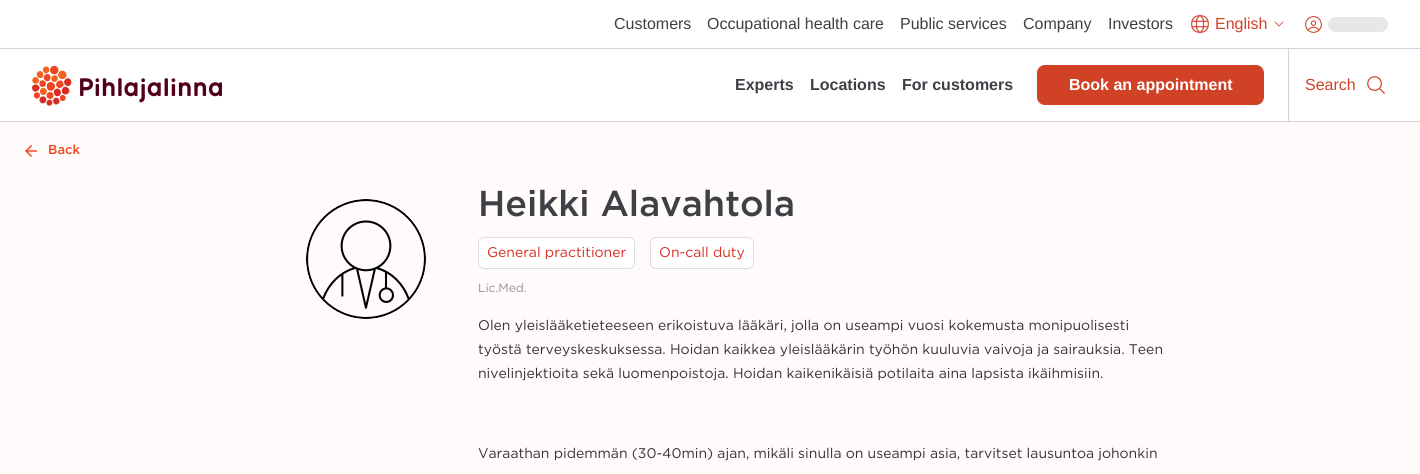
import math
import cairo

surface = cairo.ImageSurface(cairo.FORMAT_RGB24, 1420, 474)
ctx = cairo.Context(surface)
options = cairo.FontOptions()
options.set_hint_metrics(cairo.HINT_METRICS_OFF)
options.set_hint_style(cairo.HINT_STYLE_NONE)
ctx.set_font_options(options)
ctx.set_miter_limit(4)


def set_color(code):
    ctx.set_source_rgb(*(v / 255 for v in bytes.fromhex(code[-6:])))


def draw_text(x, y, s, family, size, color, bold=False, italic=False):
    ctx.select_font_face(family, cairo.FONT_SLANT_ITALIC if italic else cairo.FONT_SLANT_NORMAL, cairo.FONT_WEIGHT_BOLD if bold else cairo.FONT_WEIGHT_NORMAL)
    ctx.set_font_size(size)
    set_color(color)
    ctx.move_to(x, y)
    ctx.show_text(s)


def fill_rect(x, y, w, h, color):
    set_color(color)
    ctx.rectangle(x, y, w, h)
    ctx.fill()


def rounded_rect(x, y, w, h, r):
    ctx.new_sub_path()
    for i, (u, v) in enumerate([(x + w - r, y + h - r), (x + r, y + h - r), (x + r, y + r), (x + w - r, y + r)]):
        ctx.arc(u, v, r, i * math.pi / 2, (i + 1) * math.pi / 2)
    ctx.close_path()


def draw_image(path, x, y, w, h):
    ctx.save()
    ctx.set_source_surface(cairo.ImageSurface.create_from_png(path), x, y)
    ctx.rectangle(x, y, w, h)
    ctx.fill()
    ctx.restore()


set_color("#fffbfa")
ctx.paint()
fill_rect(0, 0, 1420, 48, "#ffffff")
draw_text(614, 29, "Customers", "Liberation Sans", 16, "#3f3f46")
draw_text(707, 29, "Occupational health care", "Liberation Sans", 16, "#3f3f46")
draw_text(900, 29, "Public services", "Liberation Sans", 16, "#3f3f46")
draw_text(1023, 29, "Company", "Liberation Sans", 16, "#3f3f46")
draw_text(1108, 29, "Investors", "Liberation Sans", 16, "#3f3f46")
draw_image("assets/img1.png", 1191, 15, 18, 18)
draw_text(1215, 29, "English", "Liberation Sans", 16, "#d04125")
draw_image("assets/img2.png", 1274, 21, 10, 6)
draw_image("assets/img3.png", 1305, 16, 17, 17)
set_color("#e7e7e8")
rounded_rect(1328, 17, 60, 15, 7.5)
ctx.fill()
fill_rect(0, 49, 1420, 72, "#ffffff")
fill_rect(0, 48, 1420, 1, "#d4d4d8")
draw_image("assets/img4.png", 32, 65, 190, 41)
draw_text(735, 90, "Experts", "Liberation Sans", 16, "#3f3f46", bold=True)
draw_text(810, 90, "Locations", "Liberation Sans", 16, "#3f3f46", bold=True)
draw_text(902, 90, "For customers", "Liberation Sans", 16, "#3f3f46", bold=True)
set_color("#d04125")
rounded_rect(1037, 65, 227, 40, 8)
ctx.fill()
draw_text(1069, 90, "Book an appointment", "Liberation Sans", 16, "#ffffff", bold=True)
fill_rect(1288, 49, 1, 72, "#d4d4d8")
draw_text(1305, 90, "Search", "Liberation Sans", 16, "#d04125")
draw_image("assets/img5.png", 1367, 76, 18, 18)
fill_rect(0, 121, 1420, 1, "#d4d4d8")
draw_image("assets/img6.png", 25, 145, 12, 12)
draw_text(48, 154, "Back", "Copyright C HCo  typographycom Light", 13, "#ef4623")
draw_image("assets/img7.png", 306, 199, 120, 120)
draw_text(478, 216, "Heikki Alavahtola", "Copyright C HCo  typographycom Light", 36, "#3f3f46")
set_color("#ffffff")
rounded_rect(478.5, 237.5, 156, 31, 5.5)
ctx.fill_preserve()
set_color("#dddddd")
ctx.set_line_width(1)
ctx.stroke()
draw_text(487, 257, "General practitioner", "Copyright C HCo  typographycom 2 Light", 14, "#d82c20")
set_color("#ffffff")
rounded_rect(650.5, 237.5, 103, 31, 5.5)
ctx.fill_preserve()
set_color("#dddddd")
ctx.stroke()
draw_text(659, 257, "On-call duty", "Copyright C HCo  typographycom 2 Light", 14, "#d82c20")
draw_text(478, 292, "Lic.Med.", "Copyright C HCo  typographycom 2 Light", 12, "#919191")
draw_text(478, 330, "Olen yleislääketieteeseen erikoistuva lääkäri, jolla on useampi vuosi kokemusta monipuolisesti", "Copyright C HCo  typographycom 2 Light", 14, "#333333")
draw_text(478, 354, "työstä terveyskeskuksessa. Hoidan kaikkea yleislääkärin työhön kuuluvia vaivoja ja sairauksia. Teen", "Copyright C HCo  typographycom 2 Light", 14, "#333333")
draw_text(478, 378, "nivelinjektioita sekä luomenpoistoja. Hoidan kaikenikäisiä potilaita aina lapsista ikäihmisiin.", "Copyright C HCo  typographycom 2 Light", 14, "#333333")
draw_text(478, 458, "Varaathan pidemmän (30-40min) ajan, mikäli sinulla on useampi asia, tarvitset lausuntoa johonkin", "Copyright C HCo  typographycom 2 Light", 14, "#333333")
surface.write_to_png("output.png")
